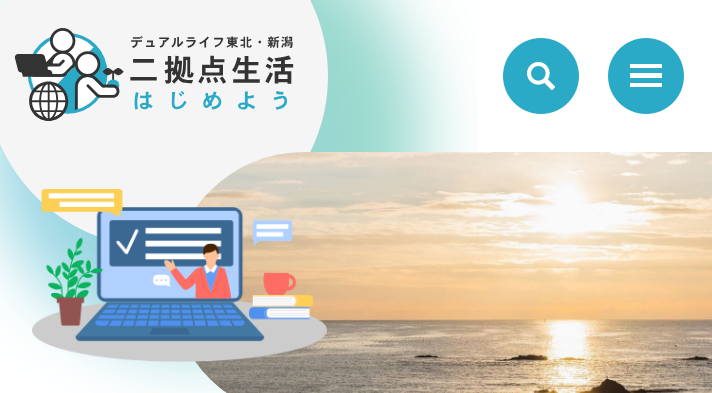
import math
import cairo

surface = cairo.ImageSurface(cairo.FORMAT_RGB24, 712, 393)
ctx = cairo.Context(surface)
options = cairo.FontOptions()
options.set_hint_metrics(cairo.HINT_METRICS_OFF)
options.set_hint_style(cairo.HINT_STYLE_NONE)
ctx.set_font_options(options)
ctx.set_miter_limit(4)


def set_color(code):
    ctx.set_source_rgb(*(v / 255 for v in bytes.fromhex(code[-6:])))


def fill_rect(x, y, w, h, color):
    set_color(color)
    ctx.rectangle(x, y, w, h)
    ctx.fill()


def draw_image(path, x, y, w, h):
    ctx.save()
    ctx.set_source_surface(cairo.ImageSurface.create_from_png(path), x, y)
    ctx.rectangle(x, y, w, h)
    ctx.fill()
    ctx.restore()


set_color("#ffffff")
ctx.paint()
draw_image("assets/img1.png", 0, 0, 477, 393)
set_color("#f5f5f5")
ctx.arc(157, 76, 171, 0, 2 * math.pi)
ctx.fill()
draw_image("assets/img3.png", 195, 152, 517, 241)
draw_image("assets/img2.png", 32, 189, 295, 173)
draw_image("assets/img4.png", 14, 28, 280, 93)
set_color("#2aaac6")
ctx.arc(541, 76, 38, 0, 2 * math.pi)
ctx.fill()
draw_image("assets/img5.png", 527, 62, 28, 28)
ctx.arc(646, 76, 38, 0, 2 * math.pi)
ctx.fill()
fill_rect(630, 64, 32, 4, "#ffffff")
fill_rect(630, 73, 32, 5, "#ffffff")
fill_rect(630, 83, 32, 4, "#ffffff")
surface.write_to_png("output.png")
